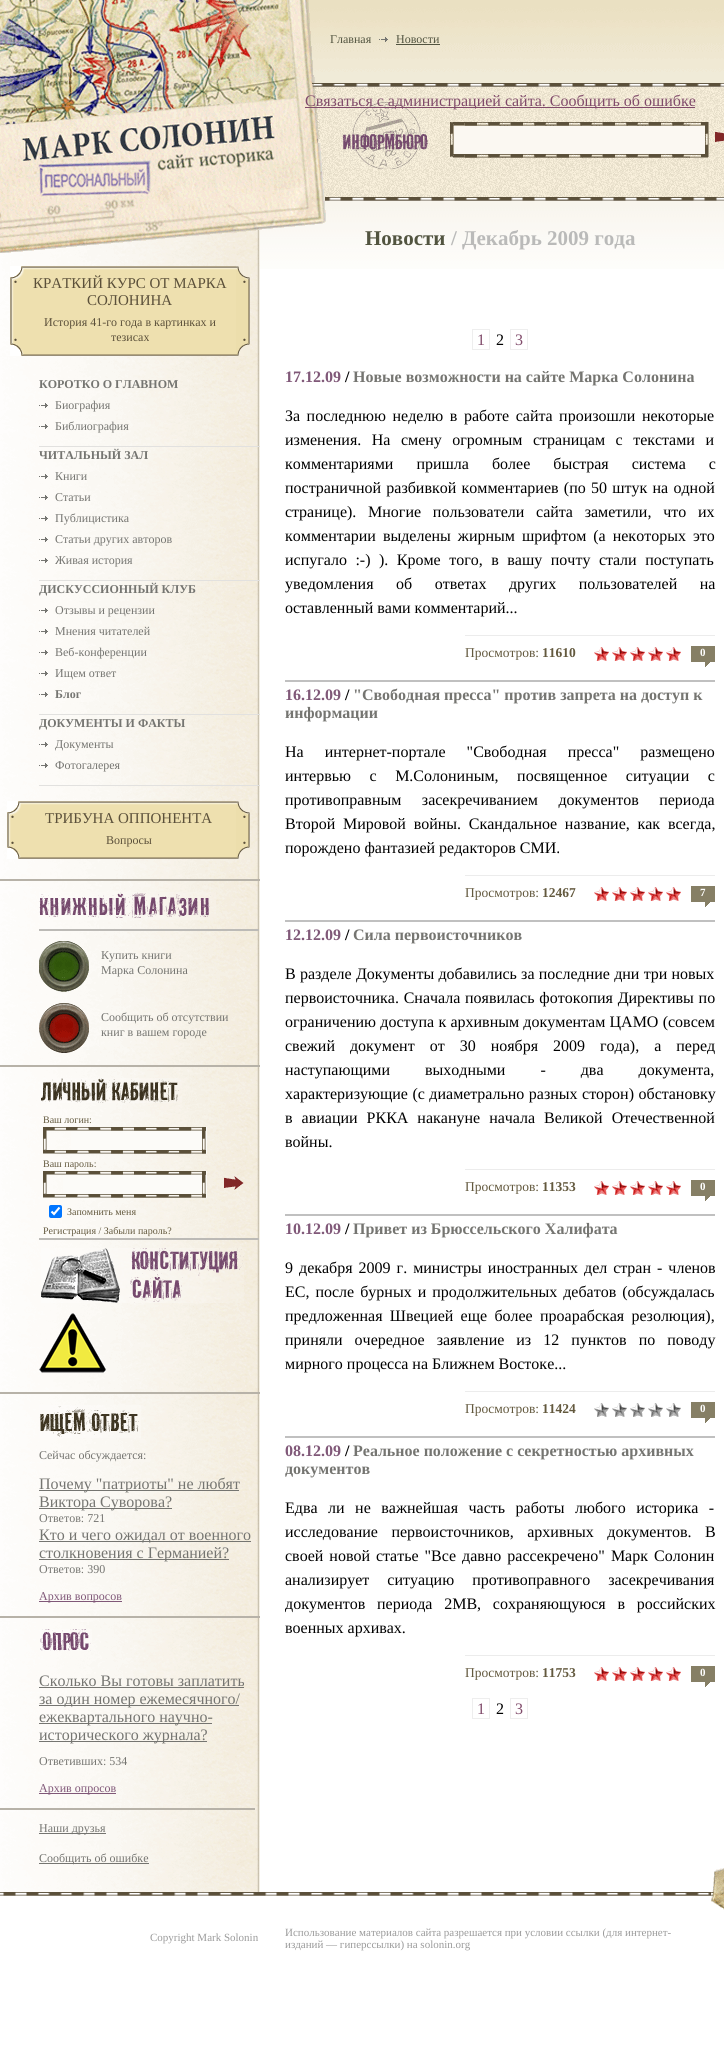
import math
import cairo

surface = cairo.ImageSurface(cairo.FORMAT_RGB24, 724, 2069)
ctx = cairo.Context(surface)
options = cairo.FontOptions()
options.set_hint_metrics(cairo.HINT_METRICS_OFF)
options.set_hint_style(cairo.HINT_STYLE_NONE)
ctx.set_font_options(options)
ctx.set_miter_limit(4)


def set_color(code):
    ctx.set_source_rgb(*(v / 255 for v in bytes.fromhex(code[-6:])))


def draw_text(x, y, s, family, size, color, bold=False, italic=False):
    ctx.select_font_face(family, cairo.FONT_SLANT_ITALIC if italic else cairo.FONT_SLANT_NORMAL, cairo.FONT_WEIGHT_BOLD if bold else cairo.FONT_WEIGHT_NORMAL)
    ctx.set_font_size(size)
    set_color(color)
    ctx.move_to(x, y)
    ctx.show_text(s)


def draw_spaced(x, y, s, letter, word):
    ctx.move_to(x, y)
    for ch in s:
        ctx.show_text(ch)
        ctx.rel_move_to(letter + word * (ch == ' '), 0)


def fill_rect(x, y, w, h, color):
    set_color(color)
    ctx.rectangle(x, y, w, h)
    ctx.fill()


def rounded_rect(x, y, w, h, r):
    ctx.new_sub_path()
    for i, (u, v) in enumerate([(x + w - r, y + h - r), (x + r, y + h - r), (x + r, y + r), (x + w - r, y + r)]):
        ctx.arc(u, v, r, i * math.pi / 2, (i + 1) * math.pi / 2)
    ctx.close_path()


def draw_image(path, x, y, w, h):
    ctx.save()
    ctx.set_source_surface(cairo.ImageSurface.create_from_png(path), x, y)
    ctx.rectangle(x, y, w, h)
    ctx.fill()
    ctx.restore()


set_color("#ffffff")
ctx.paint()
draw_image("assets/img2.png", 309, 0, 415, 83)
draw_image("assets/img4.png", 312, 83, 412, 4)
draw_image("assets/img5.png", 0, 230, 260, 1662)
draw_image("assets/img34.png", 315, 87, 409, 110)
draw_image("assets/img40.png", 325, 197, 399, 4)
draw_image("assets/img41.png", 260, 201, 464, 68)
draw_image("assets/img1.png", 0, 0, 326, 253)
draw_text(330, 43, "Главная", "Liberation Serif", 12, "#525440")
draw_image("assets/img3.png", 379, 37, 9, 5)
draw_text(396, 43, "Новости", "Liberation Serif", 12, "#525440")
fill_rect(396, 44, 44, 1, "#525440")
draw_image("assets/img6.png", 10, 283, 14, 73)
draw_image("assets/img7.png", 10, 266, 14, 17)
fill_rect(24, 270, 212, 84, "#eee0af")
draw_image("assets/img8.png", 24, 354, 212, 2)
draw_image("assets/img9.png", 24, 266, 212, 4)
draw_text(33, 288, "КРАТКИЙ КУРС ОТ МАРКА", "Liberation Serif", 15, "#5b503a")
draw_text(87, 305, "СОЛОНИНА", "Liberation Serif", 15, "#5b503a")
draw_text(44, 326, "История 41-го года в картинках и", "Liberation Serif", 12, "#5b503a")
draw_text(111, 341, "тезисах", "Liberation Serif", 12, "#5b503a")
draw_image("assets/img10.png", 236, 283, 14, 73)
draw_image("assets/img11.png", 236, 266, 14, 17)
fill_rect(39, 446, 221, 1, "#e2e1df")
draw_text(39, 388, "КОРОТКО О ГЛАВНОМ", "Liberation Serif", 12, "#757571", bold=True)
draw_image("assets/img12.png", 39, 403, 9, 5)
draw_text(55, 409, "Биография", "Liberation Serif", 12, "#757571")
draw_image("assets/img13.png", 39, 424, 9, 5)
draw_text(55, 430, "Библиография", "Liberation Serif", 12, "#757571")
fill_rect(39, 580, 221, 1, "#e2e1df")
draw_text(39, 459, "ЧИТАЛЬНЫЙ ЗАЛ", "Liberation Serif", 12, "#757571", bold=True)
draw_image("assets/img12.png", 39, 474, 9, 5)
draw_text(55, 480, "Книги", "Liberation Serif", 12, "#757571")
draw_image("assets/img14.png", 39, 495, 9, 5)
draw_text(55, 501, "Статьи", "Liberation Serif", 12, "#757571")
draw_image("assets/img12.png", 39, 516, 9, 5)
draw_text(55, 522, "Публицистика", "Liberation Serif", 12, "#757571")
draw_image("assets/img15.png", 39, 537, 9, 5)
draw_text(55, 543, "Статьи других авторов", "Liberation Serif", 12, "#757571")
draw_image("assets/img16.png", 39, 558, 9, 5)
draw_text(55, 564, "Живая история", "Liberation Serif", 12, "#757571")
fill_rect(39, 714, 221, 1, "#e2e1df")
draw_text(39, 593, "ДИСКУССИОННЫЙ КЛУБ", "Liberation Serif", 12, "#757571", bold=True)
draw_image("assets/img12.png", 39, 608, 9, 5)
draw_text(55, 614, "Отзывы и рецензии", "Liberation Serif", 12, "#757571")
draw_image("assets/img12.png", 39, 629, 9, 5)
draw_text(55, 635, "Мнения читателей", "Liberation Serif", 12, "#757571")
draw_image("assets/img12.png", 39, 650, 9, 5)
draw_text(55, 656, "Веб-конференции", "Liberation Serif", 12, "#757571")
draw_image("assets/img17.png", 39, 671, 9, 5)
draw_text(55, 677, "Ищем ответ", "Liberation Serif", 12, "#757571")
draw_image("assets/img12.png", 39, 692, 9, 5)
draw_text(55, 698, "Блог", "Liberation Serif", 12, "#757571", bold=True)
fill_rect(39, 785, 221, 1, "#e2e1df")
draw_text(39, 727, "ДОКУМЕНТЫ И ФАКТЫ", "Liberation Serif", 12, "#757571", bold=True)
draw_image("assets/img18.png", 39, 742, 9, 5)
draw_text(55, 748, "Документы", "Liberation Serif", 12, "#757571")
draw_image("assets/img19.png", 39, 763, 9, 5)
draw_text(55, 769, "Фотогалерея", "Liberation Serif", 12, "#757571")
draw_image("assets/img20.png", 7, 818, 14, 41)
draw_image("assets/img7.png", 7, 801, 14, 17)
fill_rect(21, 805, 215, 52, "#eee0af")
draw_image("assets/img21.png", 21, 857, 215, 2)
draw_image("assets/img22.png", 21, 801, 215, 4)
draw_text(45, 823, "ТРИБУНА ОППОНЕНТА", "Liberation Serif", 15, "#5b503a")
draw_text(106, 844, "Вопросы", "Liberation Serif", 12, "#5b503a")
draw_image("assets/img23.png", 236, 818, 14, 41)
draw_image("assets/img11.png", 236, 801, 14, 17)
fill_rect(0, 879, 260, 2, "#b7b2a8")
fill_rect(39, 929, 220, 2, "#bcbab6")
draw_image("assets/img24.png", 39, 892, 177, 28)
draw_image("assets/img25.png", 39, 941, 50, 51)
draw_text(101, 959, "Купить книги", "Liberation Serif", 12, "#757571")
draw_text(101, 974, "Марка Солонина", "Liberation Serif", 12, "#757571")
draw_image("assets/img26.png", 39, 1003, 50, 50)
draw_text(101, 1021, "Сообщить об отсутствии", "Liberation Serif", 12, "#757571")
draw_text(101, 1036, "книг в вашем городе", "Liberation Serif", 12, "#757571")
fill_rect(0, 1065, 260, 2, "#b7b2a8")
draw_image("assets/img27.png", 41, 1078, 141, 25)
draw_text(43, 1123, "Ваш логин:", "Liberation Serif", 10, "#63593e")
fill_rect(71, 1127, 136, 27, "#fcfbf8")
draw_image("assets/img28.png", 43, 1127, 163, 27)
draw_text(43, 1167, "Ваш пароль:", "Liberation Serif", 10, "#63593e")
draw_image("assets/img29.png", 224, 1176, 20, 14)
fill_rect(63, 1171, 144, 27, "#fcfbf8")
draw_image("assets/img28.png", 43, 1171, 163, 27)
set_color("#0075ff")
rounded_rect(49, 1205, 13, 13, 2)
ctx.fill()
ctx.new_path()
ctx.move_to(51.5, 1211.5)
ctx.line_to(54, 1214)
ctx.line_to(59.5, 1207.5)
set_color("#ffffff")
ctx.set_line_width(2.1)
ctx.stroke()
draw_text(67, 1215, "Запомнить меня", "Liberation Serif", 10, "#63593e")
draw_text(43, 1234, "Регистрация / Забыли пароль?", "Liberation Serif", 10, "#63593e")
fill_rect(39, 1238, 220, 2, "#bcbab6")
draw_image("assets/img30.png", 41, 1248, 203, 55)
draw_image("assets/img31.png", 39, 1313, 67, 60)
fill_rect(0, 1392, 260, 2, "#b7b2a8")
draw_image("assets/img32.png", 39, 1405, 102, 33)
draw_text(39, 1459, "Сейчас обсуждается:", "Liberation Serif", 12, "#757571")
fill_rect(39, 1490, 200, 1, "#757571")
draw_text(39, 1489, "Почему \"патриоты\" не любят", "Liberation Serif", 16, "#757571")
fill_rect(39, 1508, 133, 1, "#757571")
draw_text(39, 1507, "Виктора Суворова?", "Liberation Serif", 16, "#757571")
draw_text(39, 1522, "Ответов: 721", "Liberation Serif", 12, "#757571")
fill_rect(39, 1541, 212, 1, "#757571")
draw_text(39, 1540, "Кто и чего ожидал от военного", "Liberation Serif", 16, "#757571")
fill_rect(39, 1559, 190, 1, "#757571")
draw_text(39, 1558, "столкновения с Германией?", "Liberation Serif", 16, "#757571")
draw_text(39, 1573, "Ответов: 390", "Liberation Serif", 12, "#757571")
fill_rect(39, 1601, 83, 1, "#805878")
draw_text(39, 1600, "Архив вопросов", "Liberation Serif", 12, "#805878")
fill_rect(0, 1616, 260, 2, "#b7b2a8")
draw_image("assets/img33.png", 40, 1629, 52, 22)
draw_text(39, 1686, "Сколько Вы готовы заплатить", "Liberation Serif", 16, "#757571")
fill_rect(39, 1687, 205, 1, "#757571")
fill_rect(39, 1705, 200, 1, "#757571")
draw_text(39, 1704, "за один номер ежемесячного/", "Liberation Serif", 16, "#757571")
fill_rect(39, 1723, 173, 1, "#757571")
draw_text(39, 1722, "ежеквартального научно-", "Liberation Serif", 16, "#757571")
fill_rect(39, 1741, 168, 1, "#757571")
draw_text(39, 1740, "исторического журнала?", "Liberation Serif", 16, "#757571")
draw_text(39, 1765, "Ответивших: 534", "Liberation Serif", 12, "#757571")
fill_rect(39, 1793, 77, 1, "#805878")
draw_text(39, 1792, "Архив опросов", "Liberation Serif", 12, "#805878")
fill_rect(0, 1808, 255, 2, "#b7b2a8")
fill_rect(39, 1833, 67, 1, "#757571")
draw_text(39, 1832, "Наши друзья", "Liberation Serif", 12, "#757571")
fill_rect(39, 1863, 110, 1, "#757571")
draw_text(39, 1862, "Сообщить об ошибке", "Liberation Serif", 12, "#757571")
draw_image("assets/img35.png", 340, 101, 88, 68)
fill_rect(305, 107, 390, 1, "#804a6a")
draw_text(305, 106, "Cвязаться с администрацией сайта. Сообщить об ошибке", "Liberation Serif", 16, "#804a6a")
draw_image("assets/img36.png", 450, 122, 15, 36)
draw_image("assets/img37.png", 690, 122, 19, 36)
draw_image("assets/img38.png", 465, 122, 225, 36)
draw_image("assets/img39.png", 715, 131, 9, 11)
draw_text(365, 245, "Новости", "Liberation Serif", 21, "#525440", bold=True)
draw_text(451, 245, "/ Декабрь 2009 года", "Liberation Serif", 21, "#babab9", bold=True)
ctx.rectangle(472.5, 329.5, 17, 20)
set_color("#eeeeee")
ctx.set_line_width(1)
ctx.stroke()
draw_text(477, 345, "1", "Liberation Serif", 16, "#804a6a")
draw_text(496, 345, "2", "Liberation Serif", 16, "#000000")
ctx.rectangle(510.5, 329.5, 17, 20)
set_color("#eeeeee")
ctx.stroke()
draw_text(515, 345, "3", "Liberation Serif", 16, "#804a6a")
draw_text(285, 382, "17.12.09", "Liberation Serif", 16, "#805878", bold=True)
draw_text(345, 382, "/", "Liberation Serif", 16, "#000000", bold=True)
draw_text(353, 382, "Новые возможности на сайте Марка Солонина", "Liberation Serif", 16, "#757571", bold=True)
ctx.select_font_face("Liberation Serif")
set_color("#000000")
draw_spaced(285, 421, "За последнюю неделю в работе сайта произошли некоторые", 0, 2.5)
draw_spaced(285, 445, "изменения. На смену огромным страницам с текстами и", 0, 6.5)
draw_spaced(285, 469, "комментариями пришла более быстрая система с", 0, 19)
draw_spaced(285, 493, "постраничной разбивкой комментариев (по 50 штук на одной", 0, 1.25)
draw_spaced(285, 517, "странице). Многие пользователи сайта заметили, что их", 0, 7.75)
draw_spaced(285, 541, "комментарии выделены жирным шрифтом (а некоторых это", 0, 3)
draw_spaced(285, 565, "испугало :-) ). Кроме того, в вашу почту стали поступать", 0, 4.5)
draw_spaced(285, 589, "уведомления об ответах других пользователей на", 0, 18.5)
draw_text(285, 613, "оставленный вами комментарий...", "Liberation Serif", 16, "#000000")
fill_rect(465, 635, 250, 1, "#ececec")
draw_text(465, 657, "Просмотров:", "Liberation Serif", 13.5, "#63593e")
draw_text(542, 657, "11610", "Liberation Serif", 13.5, "#63593e", bold=True)
draw_image("assets/img42.png", 594, 647, 15, 14)
draw_image("assets/img42.png", 612, 647, 15, 14)
draw_image("assets/img42.png", 630, 647, 15, 14)
draw_image("assets/img42.png", 648, 647, 15, 14)
draw_image("assets/img42.png", 666, 647, 15, 14)
draw_image("assets/img43.png", 691, 646, 24, 21)
draw_text(700, 656, "0", "Liberation Serif", 11, "#ffffff", bold=True)
fill_rect(285, 680, 430, 2, "#c0c0c0")
draw_text(285, 700, "16.12.09", "Liberation Serif", 16, "#805878", bold=True)
draw_text(345, 700, "/", "Liberation Serif", 16, "#000000", bold=True)
draw_text(353, 700, "\"Свободная пресса\" против запрета на доступ к", "Liberation Serif", 16, "#757571", bold=True)
draw_text(285, 718, "информации", "Liberation Serif", 16, "#757571", bold=True)
ctx.select_font_face("Liberation Serif")
set_color("#000000")
draw_spaced(285, 757, "На интернет-портале \"Свободная пресса\" размещено", 0, 17)
draw_spaced(285, 781, "интервью с М.Солониным, посвященное ситуации с", 0, 14.5)
draw_spaced(285, 805, "противоправным засекречиванием документов периода", 0, 16.5)
draw_spaced(285, 829, "Второй Мировой войны. Скандальное название, как всегда,", 0, 3.75)
draw_text(285, 853, "порождено фантазией редакторов СМИ.", "Liberation Serif", 16, "#000000")
fill_rect(465, 875, 250, 1, "#ececec")
draw_text(465, 897, "Просмотров:", "Liberation Serif", 13.5, "#63593e")
draw_text(542, 897, "12467", "Liberation Serif", 13.5, "#63593e", bold=True)
draw_image("assets/img42.png", 594, 887, 15, 14)
draw_image("assets/img42.png", 612, 887, 15, 14)
draw_image("assets/img42.png", 630, 887, 15, 14)
draw_image("assets/img42.png", 648, 887, 15, 14)
draw_image("assets/img42.png", 666, 887, 15, 14)
draw_image("assets/img43.png", 691, 886, 24, 21)
draw_text(700, 896, "7", "Liberation Serif", 11, "#ffffff", bold=True)
fill_rect(285, 920, 430, 2, "#c0c0c0")
draw_text(285, 940, "12.12.09", "Liberation Serif", 16, "#805878", bold=True)
draw_text(345, 940, "/", "Liberation Serif", 16, "#000000", bold=True)
draw_text(353, 940, "Сила первоисточников", "Liberation Serif", 16, "#757571", bold=True)
ctx.select_font_face("Liberation Serif")
set_color("#000000")
draw_spaced(285, 979, "В разделе Документы добавились за последние дни три новых", 0, 0.25)
draw_spaced(285, 1003, "первоисточника. Сначала появилась фотокопия Директивы по", 0, 0.75)
draw_spaced(285, 1027, "ограничению доступа к архивным документам ЦАМО (совсем", 0, 0.25)
draw_spaced(285, 1051, "свежий документ от 30 ноября 2009 года), а перед", 0, 11)
draw_spaced(285, 1075, "наступающими выходными - два документа,", 0, 31)
draw_spaced(285, 1099, "характеризующие (с диаметрально разных сторон) обстановку", 0, 0.5)
draw_spaced(285, 1123, "в авиации РККА накануне начала Великой Отечественной", 0, 5)
draw_text(285, 1147, "войны.", "Liberation Serif", 16, "#000000")
fill_rect(465, 1169, 250, 1, "#ececec")
draw_text(465, 1191, "Просмотров:", "Liberation Serif", 13.5, "#63593e")
draw_text(542, 1191, "11353", "Liberation Serif", 13.5, "#63593e", bold=True)
draw_image("assets/img42.png", 594, 1181, 15, 14)
draw_image("assets/img42.png", 612, 1181, 15, 14)
draw_image("assets/img42.png", 630, 1181, 15, 14)
draw_image("assets/img42.png", 648, 1181, 15, 14)
draw_image("assets/img42.png", 666, 1181, 15, 14)
draw_image("assets/img43.png", 691, 1180, 24, 21)
draw_text(700, 1190, "0", "Liberation Serif", 11, "#ffffff", bold=True)
fill_rect(285, 1214, 430, 2, "#c0c0c0")
draw_text(285, 1234, "10.12.09", "Liberation Serif", 16, "#805878", bold=True)
draw_text(345, 1234, "/", "Liberation Serif", 16, "#000000", bold=True)
draw_text(353, 1234, "Привет из Брюссельского Халифата", "Liberation Serif", 16, "#757571", bold=True)
ctx.select_font_face("Liberation Serif")
set_color("#000000")
draw_spaced(285, 1273, "9 декабря 2009 г. министры иностранных дел стран - членов", 0, 2)
draw_spaced(285, 1297, "ЕС, после бурных и продолжительных дебатов (обсуждалась", 0, 2)
draw_spaced(285, 1321, "предложенная Швецией еще более проарабская резолюция),", 0, 3.25)
draw_spaced(285, 1345, "приняли очередное заявление из 12 пунктов по поводу", 0, 8)
draw_text(285, 1369, "мирного процесса на Ближнем Востоке...", "Liberation Serif", 16, "#000000")
fill_rect(465, 1391, 250, 1, "#ececec")
draw_text(465, 1413, "Просмотров:", "Liberation Serif", 13.5, "#63593e")
draw_text(542, 1413, "11424", "Liberation Serif", 13.5, "#63593e", bold=True)
draw_image("assets/img44.png", 594, 1403, 15, 14)
draw_image("assets/img44.png", 612, 1403, 15, 14)
draw_image("assets/img44.png", 630, 1403, 15, 14)
draw_image("assets/img44.png", 648, 1403, 15, 14)
draw_image("assets/img44.png", 666, 1403, 15, 14)
draw_image("assets/img43.png", 691, 1402, 24, 21)
draw_text(700, 1412, "0", "Liberation Serif", 11, "#ffffff", bold=True)
fill_rect(285, 1436, 430, 2, "#c0c0c0")
draw_text(285, 1456, "08.12.09", "Liberation Serif", 16, "#805878", bold=True)
draw_text(345, 1456, "/", "Liberation Serif", 16, "#000000", bold=True)
draw_text(353, 1456, "Реальное положение с секретностью архивных", "Liberation Serif", 16, "#757571", bold=True)
draw_text(285, 1474, "документов", "Liberation Serif", 16, "#757571", bold=True)
ctx.select_font_face("Liberation Serif")
set_color("#000000")
draw_spaced(285, 1513, "Едва ли не важнейшая часть работы любого историка -", 0, 6.5)
draw_spaced(285, 1537, "исследование первоисточников, архивных документов. В", 0, 9.5)
draw_spaced(285, 1561, "своей новой статье \"Все давно рассекречено\" Марк Солонин", 0, 2)
draw_spaced(285, 1585, "анализирует ситуацию противоправного засекречивания", 0, 14)
draw_spaced(285, 1609, "документов периода 2МВ, сохраняющуюся в российских", 0, 7.75)
draw_text(285, 1633, "военных архивах.", "Liberation Serif", 16, "#000000")
fill_rect(465, 1655, 250, 1, "#ececec")
draw_text(465, 1677, "Просмотров:", "Liberation Serif", 13.5, "#63593e")
draw_text(542, 1677, "11753", "Liberation Serif", 13.5, "#63593e", bold=True)
draw_image("assets/img42.png", 594, 1667, 15, 14)
draw_image("assets/img42.png", 612, 1667, 15, 14)
draw_image("assets/img42.png", 630, 1667, 15, 14)
draw_image("assets/img42.png", 648, 1667, 15, 14)
draw_image("assets/img42.png", 666, 1667, 15, 14)
draw_image("assets/img43.png", 691, 1666, 24, 21)
draw_text(700, 1676, "0", "Liberation Serif", 11, "#ffffff", bold=True)
ctx.rectangle(472.5, 1698.5, 17, 20)
set_color("#eeeeee")
ctx.stroke()
draw_text(477, 1714, "1", "Liberation Serif", 16, "#804a6a")
draw_text(496, 1714, "2", "Liberation Serif", 16, "#000000")
ctx.rectangle(510.5, 1698.5, 17, 20)
set_color("#eeeeee")
ctx.stroke()
draw_text(515, 1714, "3", "Liberation Serif", 16, "#804a6a")
draw_image("assets/img45.png", 0, 1892, 711, 4)
draw_image("assets/img46.png", 711, 1868, 13, 42)
draw_text(150, 1941, "Copyright Mark Solonin", "Liberation Serif", 11, "#9b9b9b")
draw_text(285, 1936, "Использование материалов сайта разрешается при условии ссылки (для интернет-", "Liberation Serif", 11, "#9b9b9b")
draw_text(285, 1948, "изданий — гиперссылки) на solonin.org", "Liberation Serif", 11, "#9b9b9b")
surface.write_to_png("output.png")
